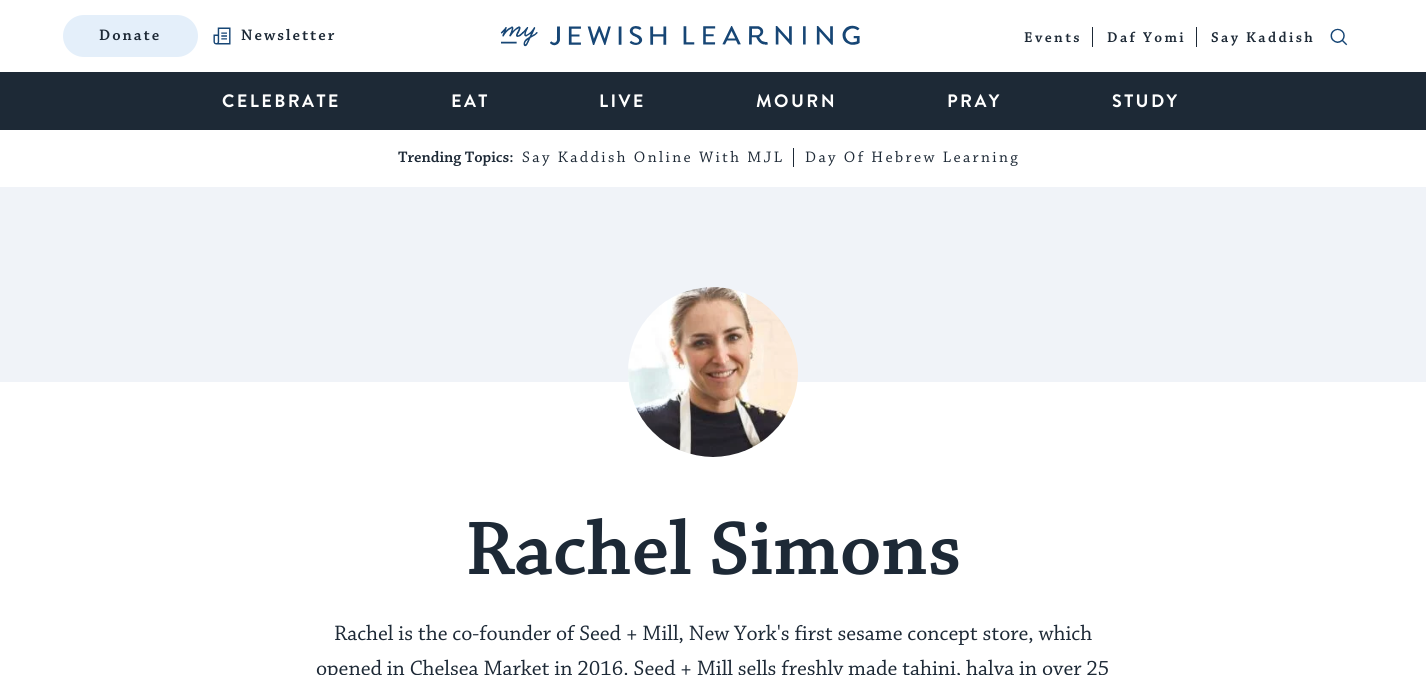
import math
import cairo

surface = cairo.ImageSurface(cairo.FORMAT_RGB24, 1426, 675)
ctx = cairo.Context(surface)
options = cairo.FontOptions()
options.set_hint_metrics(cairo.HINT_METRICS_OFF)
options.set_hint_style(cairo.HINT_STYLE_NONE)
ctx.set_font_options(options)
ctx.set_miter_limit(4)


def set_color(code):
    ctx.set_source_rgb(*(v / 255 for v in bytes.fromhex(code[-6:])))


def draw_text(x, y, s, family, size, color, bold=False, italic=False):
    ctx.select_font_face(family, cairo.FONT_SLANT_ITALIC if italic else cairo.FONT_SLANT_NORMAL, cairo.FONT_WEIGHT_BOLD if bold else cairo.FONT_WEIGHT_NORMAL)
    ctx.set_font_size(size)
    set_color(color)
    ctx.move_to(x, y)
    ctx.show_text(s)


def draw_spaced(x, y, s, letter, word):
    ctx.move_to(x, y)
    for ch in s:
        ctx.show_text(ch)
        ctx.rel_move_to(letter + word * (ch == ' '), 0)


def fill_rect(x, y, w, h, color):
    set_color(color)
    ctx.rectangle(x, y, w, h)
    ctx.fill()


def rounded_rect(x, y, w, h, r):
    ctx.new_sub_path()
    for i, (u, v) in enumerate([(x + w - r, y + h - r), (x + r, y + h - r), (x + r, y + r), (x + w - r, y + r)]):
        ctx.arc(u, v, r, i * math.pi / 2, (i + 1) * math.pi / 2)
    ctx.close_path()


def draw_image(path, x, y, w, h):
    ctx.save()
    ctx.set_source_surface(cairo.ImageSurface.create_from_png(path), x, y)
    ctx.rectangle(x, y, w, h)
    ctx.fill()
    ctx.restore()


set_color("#ffffff")
ctx.paint()
set_color("#e4effa")
rounded_rect(63, 15, 135, 42, 21)
ctx.fill()
ctx.select_font_face("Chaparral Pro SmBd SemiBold")
ctx.set_font_size(16)
set_color("#1d2936")
draw_spaced(99, 40, "Donate", 2, 0)
draw_image("assets/img1.png", 213, 27, 18, 18)
draw_spaced(241, 40, "Newsletter", 2, 0)
draw_image("assets/img2.png", 500, 25, 360, 22)
fill_rect(1092, 27, 1, 20, "#1d2936")
ctx.set_font_size(15)
draw_spaced(1024, 42, "Events", 2.4, 0)
fill_rect(1196, 27, 1, 20, "#1d2936")
draw_spaced(1107, 42, "Daf Yomi", 2.4, 0)
draw_spaced(1211, 42, "Say Kaddish", 2.4, 0)
draw_image("assets/img3.png", 1330, 28, 18, 18)
fill_rect(0, 72, 1426, 58, "#1d2936")
ctx.select_font_face("Brandon Grotesque", cairo.FONT_SLANT_NORMAL, cairo.FONT_WEIGHT_BOLD)
ctx.set_font_size(18)
set_color("#ffffff")
draw_spaced(222, 107, "CELEBRATE", 2.4, 0)
draw_spaced(451, 107, "EAT", 2.4, 0)
draw_spaced(599, 107, "LIVE", 2.4, 0)
draw_spaced(756, 107, "MOURN", 2.4, 0)
draw_spaced(947, 107, "PRAY", 2.4, 0)
draw_spaced(1112, 107, "STUDY", 2.4, 0)
draw_text(398, 162, "Trending Topics:", "Chaparral Pro SmBd SemiBold", 16, "#1d2936")
ctx.select_font_face("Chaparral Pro")
draw_spaced(522, 162, "Say Kaddish Online With MJL", 2.4, 0)
fill_rect(793, 148, 1, 19, "#1d2936")
draw_spaced(805, 162, "Day Of Hebrew Learning", 2.4, 0)
fill_rect(0, 187, 1426, 195, "#f0f3f8")
draw_image("assets/img4.png", 628, 287, 170, 170)
draw_text(465, 574, "Rachel Simons", "Chaparral Pro SmBd SemiBold", 80, "#1d2936")
draw_text(334, 640, "Rachel is the co-founder of Seed + Mill, New York's first sesame concept store, which", "Chaparral Pro", 22, "#1d2936")
draw_text(316, 675, "opened in Chelsea Market in 2016. Seed + Mill sells freshly made tahini, halva in over 25", "Chaparral Pro", 22, "#1d2936")
surface.write_to_png("output.png")
